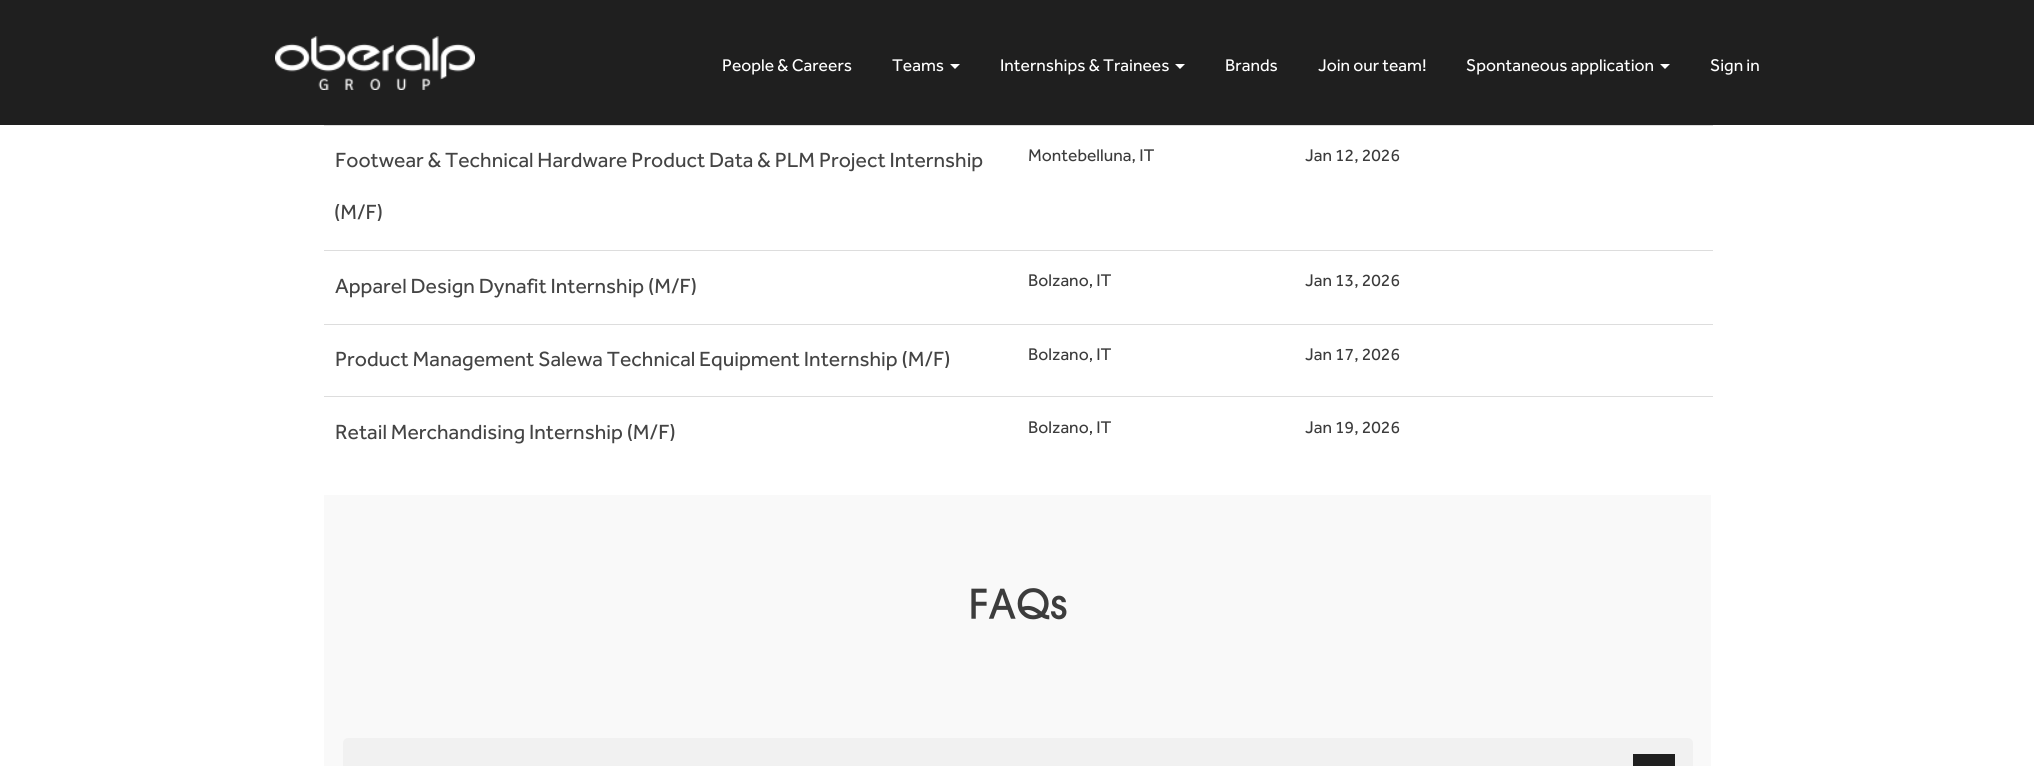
import math
import cairo

surface = cairo.ImageSurface(cairo.FORMAT_RGB24, 2034, 766)
ctx = cairo.Context(surface)
options = cairo.FontOptions()
options.set_hint_metrics(cairo.HINT_METRICS_OFF)
options.set_hint_style(cairo.HINT_STYLE_NONE)
ctx.set_font_options(options)
ctx.set_miter_limit(4)


def set_color(code):
    ctx.set_source_rgb(*(v / 255 for v in bytes.fromhex(code[-6:])))


def draw_text(x, y, s, family, size, color, bold=False, italic=False):
    ctx.select_font_face(family, cairo.FONT_SLANT_ITALIC if italic else cairo.FONT_SLANT_NORMAL, cairo.FONT_WEIGHT_BOLD if bold else cairo.FONT_WEIGHT_NORMAL)
    ctx.set_font_size(size)
    set_color(color)
    ctx.move_to(x, y)
    ctx.show_text(s)


def fill_rect(x, y, w, h, color):
    set_color(color)
    ctx.rectangle(x, y, w, h)
    ctx.fill()


def rounded_rect(x, y, w, h, r):
    ctx.new_sub_path()
    for i, (u, v) in enumerate([(x + w - r, y + h - r), (x + r, y + h - r), (x + r, y + r), (x + w - r, y + r)]):
        ctx.arc(u, v, r, i * math.pi / 2, (i + 1) * math.pi / 2)
    ctx.close_path()


def draw_image(path, x, y, w, h):
    ctx.save()
    ctx.set_source_surface(cairo.ImageSurface.create_from_png(path), x, y)
    ctx.rectangle(x, y, w, h)
    ctx.fill()
    ctx.restore()


set_color("#ffffff")
ctx.paint()
fill_rect(0, 0, 2034, 125, "#1f1f1f")
draw_image("assets/img1.png", 275, 36, 200, 54)
draw_text(722, 71, "People & Careers", "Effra", 17.5, "#ffffff")
draw_text(892, 71, "Teams", "Effra", 17.5, "#ffffff")
ctx.new_path()
ctx.move_to(950, 64)
ctx.line_to(960, 64)
ctx.line_to(955, 69)
ctx.close_path()
ctx.fill()
draw_text(1000, 71, "Internships & Trainees", "Effra", 17.5, "#ffffff")
ctx.new_path()
ctx.move_to(1175, 64)
ctx.line_to(1185, 64)
ctx.line_to(1180, 69)
ctx.close_path()
ctx.fill()
draw_text(1225, 71, "Brands", "Effra", 17.5, "#ffffff")
draw_text(1318, 71, "Join our team!", "Effra", 17.5, "#ffffff")
draw_text(1466, 71, "Spontaneous application", "Effra", 17.5, "#ffffff")
ctx.new_path()
ctx.move_to(1660, 64)
ctx.line_to(1670, 64)
ctx.line_to(1665, 69)
ctx.close_path()
ctx.fill()
draw_text(1710, 71, "Sign in", "Effra", 17.5, "#ffffff")
draw_text(335, 167, "Footwear & Technical Hardware Product Data & PLM Project Internship", "Effra", 21.25, "#444444")
draw_text(334, 219, "(M/F)", "Effra", 21.25, "#444444")
draw_text(1028, 161, "Montebelluna, IT", "Effra", 17.5, "#3c3c3c")
fill_rect(324, 125, 1389, 1, "#dddddd")
draw_text(1305, 161, "Jan 12, 2026", "Effra", 17.5, "#3c3c3c")
draw_text(335, 293, "Apparel Design Dynafit Internship (M/F)", "Effra", 21.25, "#444444")
draw_text(1028, 286, "Bolzano, IT", "Effra", 17.5, "#3c3c3c")
fill_rect(324, 250, 1389, 1, "#dddddd")
draw_text(1305, 286, "Jan 13, 2026", "Effra", 17.5, "#3c3c3c")
draw_text(335, 366, "Product Management Salewa Technical Equipment Internship (M/F)", "Effra", 21.25, "#444444")
draw_text(1028, 360, "Bolzano, IT", "Effra", 17.5, "#3c3c3c")
fill_rect(324, 324, 1389, 1, "#dddddd")
draw_text(1305, 360, "Jan 17, 2026", "Effra", 17.5, "#3c3c3c")
draw_text(335, 439, "Retail Merchandising Internship (M/F)", "Effra", 21.25, "#444444")
draw_text(1028, 433, "Bolzano, IT", "Effra", 17.5, "#3c3c3c")
fill_rect(324, 396, 1389, 1, "#dddddd")
draw_text(1305, 433, "Jan 19, 2026", "Effra", 17.5, "#3c3c3c")
fill_rect(324, 495, 1387, 271, "#f9f9f9")
draw_image("assets/img2.png", 971, 588, 96, 32)
set_color("#f1f1f1")
rounded_rect(343, 738, 1350, 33, 5)
ctx.fill()
fill_rect(1633, 754, 42, 12, "#1f1f1f")
surface.write_to_png("output.png")
